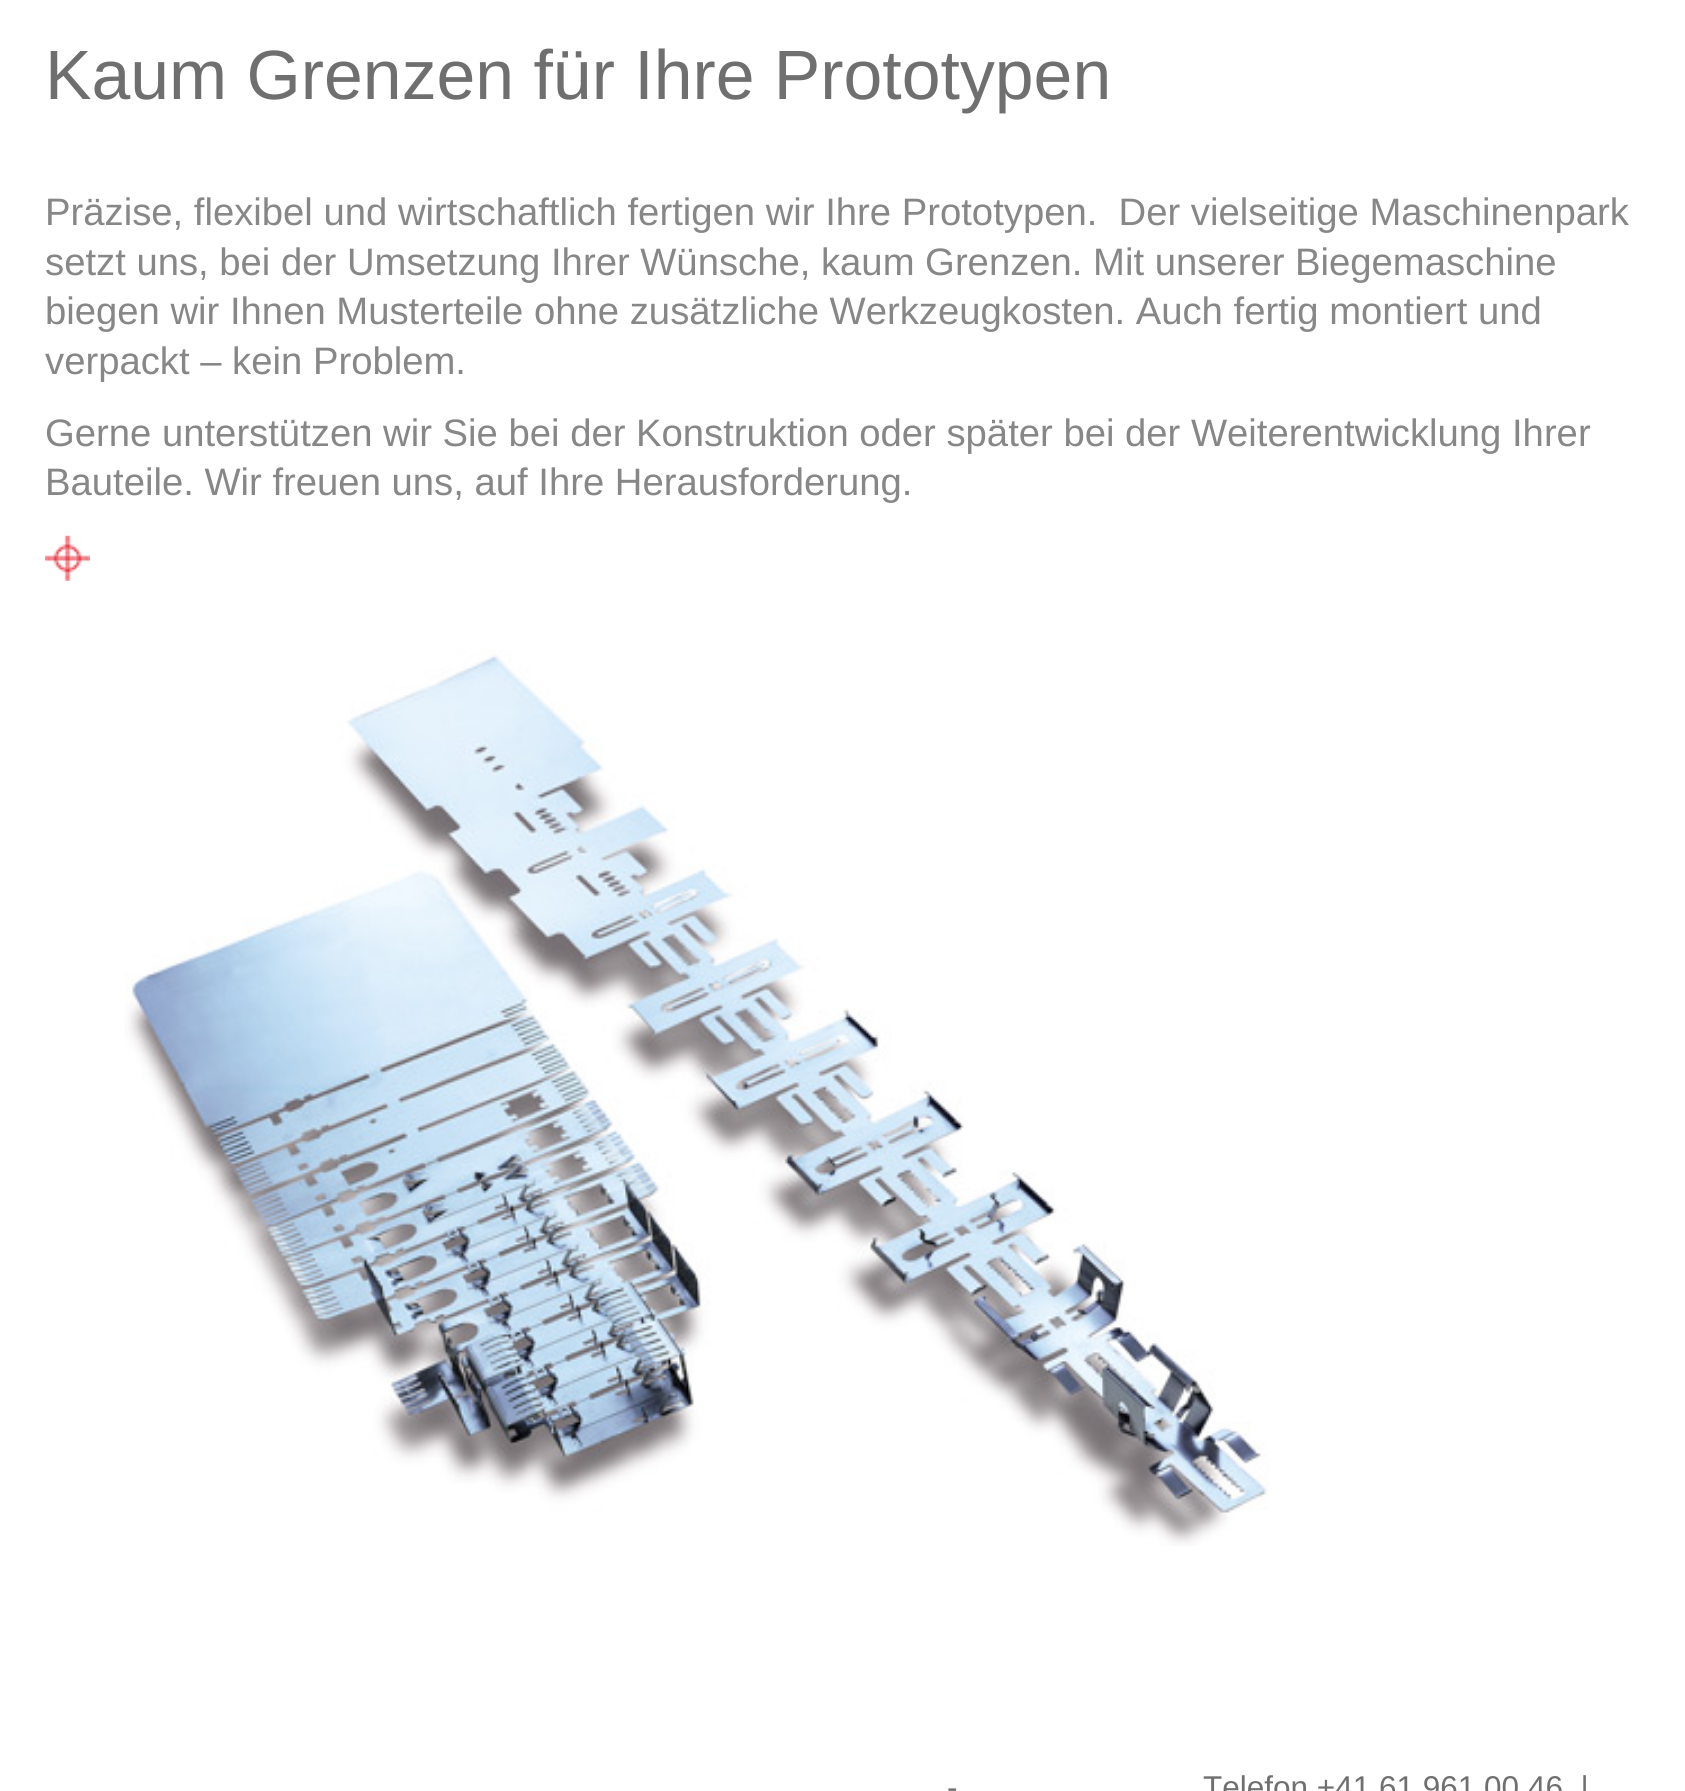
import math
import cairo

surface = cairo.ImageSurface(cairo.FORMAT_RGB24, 1685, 1791)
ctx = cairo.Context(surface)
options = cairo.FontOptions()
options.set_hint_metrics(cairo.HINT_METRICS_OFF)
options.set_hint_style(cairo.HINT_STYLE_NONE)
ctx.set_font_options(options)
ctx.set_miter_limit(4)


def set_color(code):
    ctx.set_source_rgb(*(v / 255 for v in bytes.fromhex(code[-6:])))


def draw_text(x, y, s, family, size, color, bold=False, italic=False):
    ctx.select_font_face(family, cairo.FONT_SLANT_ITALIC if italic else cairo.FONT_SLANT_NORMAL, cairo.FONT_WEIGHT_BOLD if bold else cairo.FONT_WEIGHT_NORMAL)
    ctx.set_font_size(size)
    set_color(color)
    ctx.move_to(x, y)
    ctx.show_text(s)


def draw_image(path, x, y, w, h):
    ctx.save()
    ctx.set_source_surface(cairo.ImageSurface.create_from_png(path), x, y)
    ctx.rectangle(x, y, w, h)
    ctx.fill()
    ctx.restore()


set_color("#ffffff")
ctx.paint()
draw_text(45, 99, "Kaum Grenzen für Ihre Prototypen", "Liberation Sans", 69.75, "#706f6f")
draw_text(45, 225, "Präzise, flexibel und wirtschaftlich fertigen wir Ihre Prototypen.  Der vielseitige Maschinenpark", "Liberation Sans", 38.25, "#878787")
draw_text(45, 275, "setzt uns, bei der Umsetzung Ihrer Wünsche, kaum Grenzen. Mit unserer Biegemaschine", "Liberation Sans", 38.25, "#878787")
draw_text(45, 324, "biegen wir Ihnen Musterteile ohne zusätzliche Werkzeugkosten. Auch fertig montiert und", "Liberation Sans", 38.25, "#878787")
draw_text(45, 374, "verpackt – kein Problem.", "Liberation Sans", 38.25, "#878787")
draw_text(45, 446, "Gerne unterstützen wir Sie bei der Konstruktion oder später bei der Weiterentwicklung Ihrer", "Liberation Sans", 38.25, "#878787")
draw_text(45, 495, "Bauteile. Wir freuen uns, auf Ihre Herausforderung.", "Liberation Sans", 38.25, "#878787")
draw_image("assets/img1.png", 45, 535, 45, 46)
draw_image("assets/img2.png", 124, 649, 1145, 897)
draw_text(947, 1798, "-", "Liberation Sans", 31.5, "#706f6f")
draw_text(1203, 1798, "Telefon +41 61 961 00 46  |", "Liberation Sans", 31.5, "#706f6f")
surface.write_to_png("output.png")
